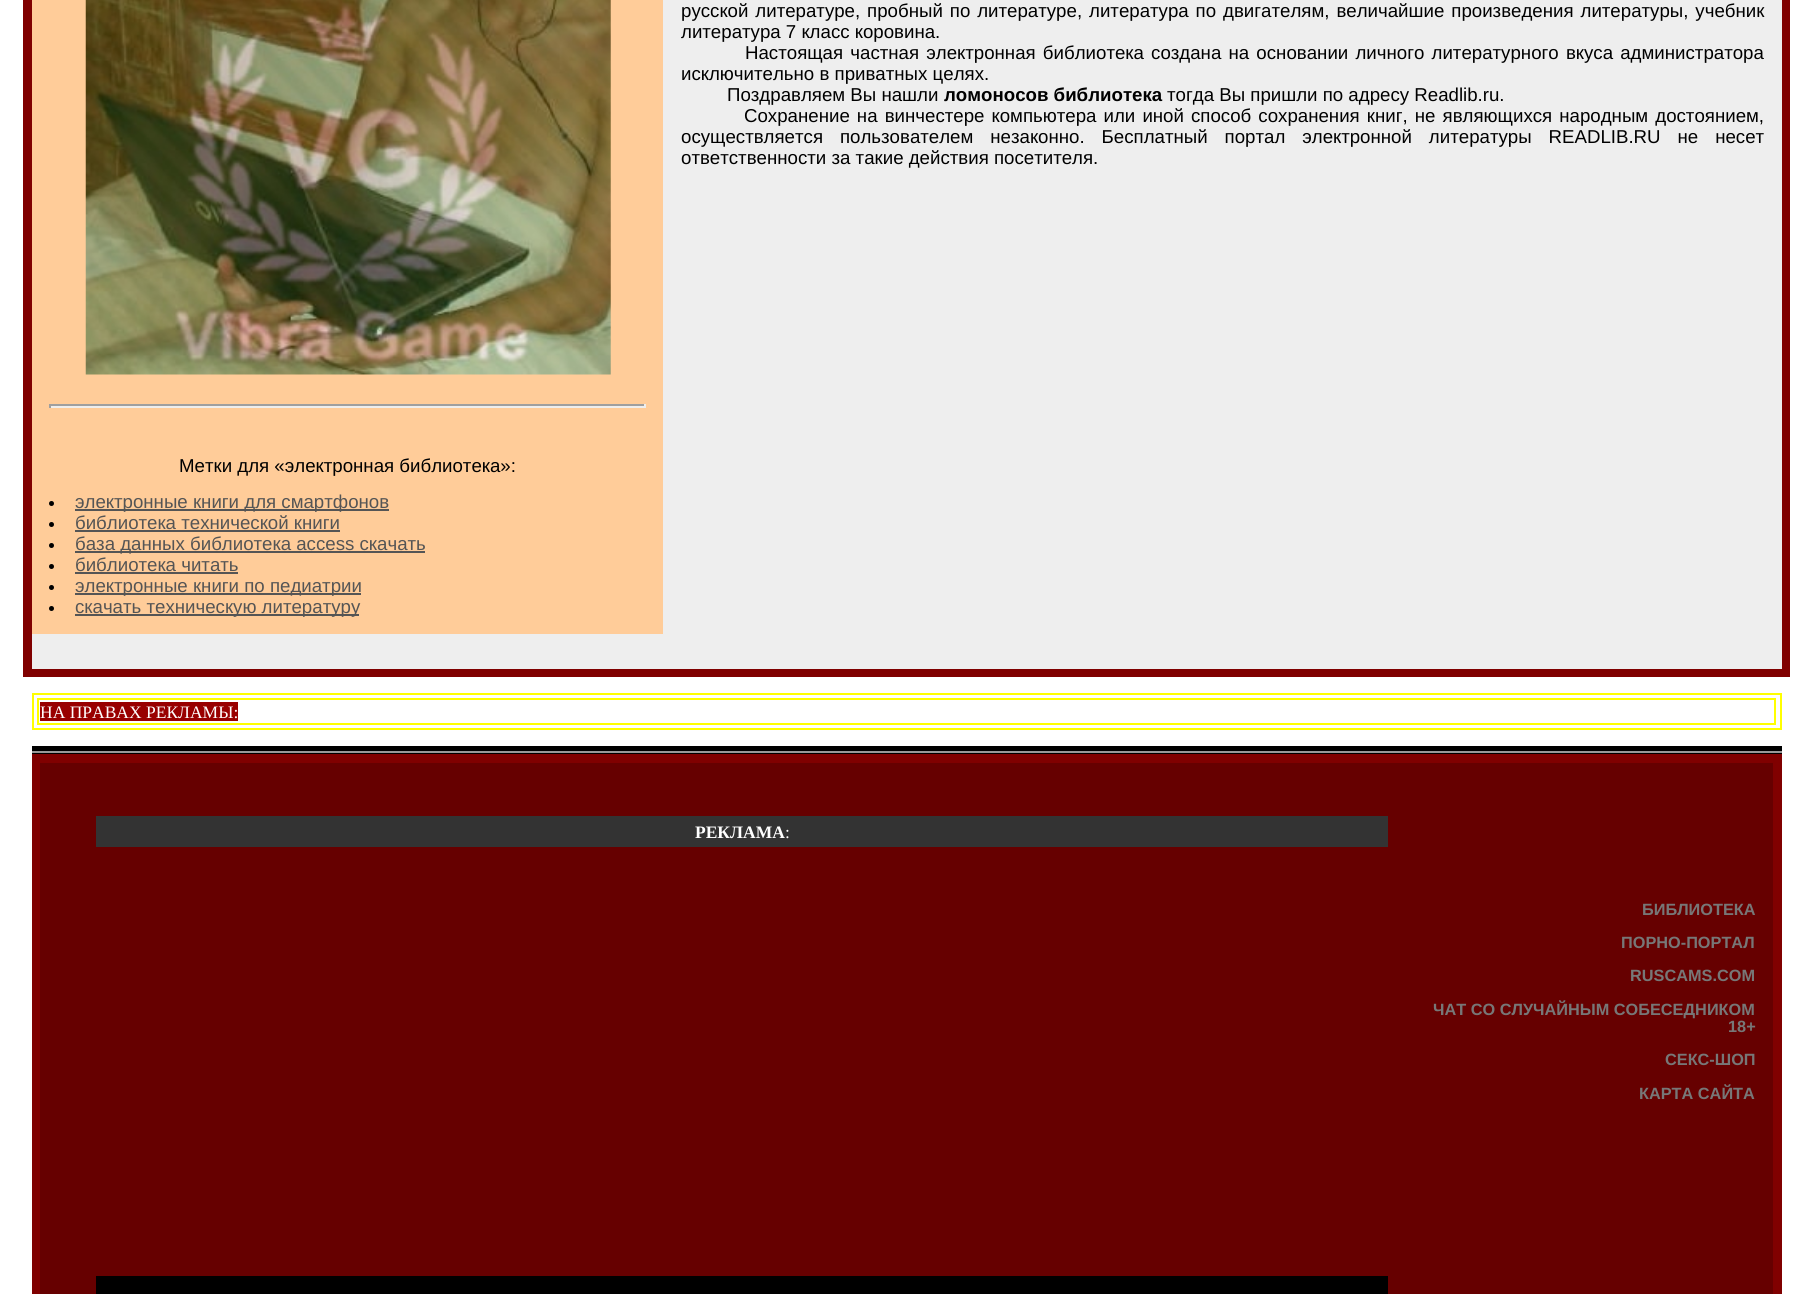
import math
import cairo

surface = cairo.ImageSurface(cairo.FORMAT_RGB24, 1813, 1294)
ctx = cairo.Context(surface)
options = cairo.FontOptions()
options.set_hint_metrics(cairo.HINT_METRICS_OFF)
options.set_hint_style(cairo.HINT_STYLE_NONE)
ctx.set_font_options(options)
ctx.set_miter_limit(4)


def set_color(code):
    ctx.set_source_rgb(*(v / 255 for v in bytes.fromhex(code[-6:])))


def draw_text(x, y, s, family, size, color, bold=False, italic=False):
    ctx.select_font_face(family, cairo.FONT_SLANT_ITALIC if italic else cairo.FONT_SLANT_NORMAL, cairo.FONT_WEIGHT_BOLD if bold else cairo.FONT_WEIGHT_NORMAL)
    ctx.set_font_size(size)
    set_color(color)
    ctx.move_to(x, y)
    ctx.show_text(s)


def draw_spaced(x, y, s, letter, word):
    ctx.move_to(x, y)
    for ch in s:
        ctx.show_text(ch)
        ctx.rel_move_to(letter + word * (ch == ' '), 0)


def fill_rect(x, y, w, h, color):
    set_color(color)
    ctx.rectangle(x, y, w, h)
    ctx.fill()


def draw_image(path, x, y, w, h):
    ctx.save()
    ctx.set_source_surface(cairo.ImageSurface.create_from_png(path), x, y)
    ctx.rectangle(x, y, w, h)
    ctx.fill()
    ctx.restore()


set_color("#ffffff")
ctx.paint()
fill_rect(23, 0, 1767, 677, "#800000")
fill_rect(663, 0, 1119, 669, "#eeeeee")
ctx.select_font_face("Liberation Sans")
ctx.set_font_size(18.67)
set_color("#000000")
draw_spaced(681, 17, "русской литературе, пробный по литературе, литература по двигателям, величайшие произведения литературы, учебник", 0, 1.75)
draw_text(681, 38, "литература 7 класс коровина.", "Liberation Sans", 18.67, "#000000")
draw_spaced(745, 59, "Настоящая частная электронная библиотека создана на основании личного литературного вкуса администратора", 0, 2)
draw_text(681, 80, "исключительно в приватных целях.", "Liberation Sans", 18.67, "#000000")
draw_text(727, 101, "Поздравляем Вы нашли", "Liberation Sans", 18.67, "#000000")
draw_text(944, 101, "ломоносов библиотека", "Liberation Sans", 18.67, "#000000", bold=True)
draw_text(1167, 101, "тогда Вы пришли по адресу Readlib.ru.", "Liberation Sans", 18.67, "#000000")
draw_spaced(744, 122, "Сохранение на винчестере компьютера или иной способ сохранения книг, не являющихся народным достоянием,", 0, 1.9)
draw_spaced(681, 143, "осуществляется пользователем незаконно. Бесплатный портал электронной литературы READLIB.RU не несет", 0, 11.75)
draw_text(681, 164, "ответственности за такие действия посетителя.", "Liberation Sans", 18.67, "#000000")
fill_rect(32, 0, 631, 634, "#ffcc99")
draw_image("assets/img1.png", 85, 0, 526, 375)
fill_rect(49, 404, 597, 2, "#9f9f9f")
fill_rect(644, 404, 2, 4, "#eeeeee")
fill_rect(49, 406, 597, 2, "#eeeeee")
fill_rect(49, 404, 2, 4, "#9f9f9f")
draw_text(179, 472, "Метки для «электронная библиотека»:", "Liberation Sans", 18.67, "#000000")
ctx.new_path()
ctx.arc(51.5, 503.5, 2.5, 0, 2 * math.pi)
ctx.fill()
fill_rect(75, 509, 314, 2, "#555555")
draw_text(75, 508, "электронные книги для смартфонов", "Liberation Sans", 18.67, "#555555")
set_color("#000000")
ctx.new_path()
ctx.arc(51.5, 524.5, 2.5, 0, 2 * math.pi)
ctx.fill()
draw_text(75, 529, "библиотека технической книги", "Liberation Sans", 18.67, "#555555")
fill_rect(75, 530, 265, 2, "#555555")
set_color("#000000")
ctx.new_path()
ctx.arc(51.5, 545.5, 2.5, 0, 2 * math.pi)
ctx.fill()
fill_rect(75, 551, 350, 2, "#555555")
draw_text(75, 550, "база данных библиотека access скачать", "Liberation Sans", 18.67, "#555555")
set_color("#000000")
ctx.new_path()
ctx.arc(51.5, 566.5, 2.5, 0, 2 * math.pi)
ctx.fill()
draw_text(75, 571, "библиотека читать", "Liberation Sans", 18.67, "#555555")
fill_rect(75, 572, 163, 2, "#555555")
set_color("#000000")
ctx.new_path()
ctx.arc(51.5, 587.5, 2.5, 0, 2 * math.pi)
ctx.fill()
fill_rect(75, 593, 286, 2, "#555555")
draw_text(75, 592, "электронные книги по педиатрии", "Liberation Sans", 18.67, "#555555")
set_color("#000000")
ctx.new_path()
ctx.arc(51.5, 608.5, 2.5, 0, 2 * math.pi)
ctx.fill()
fill_rect(75, 614, 284, 2, "#555555")
draw_text(75, 613, "скачать техническую литературу", "Liberation Sans", 18.67, "#555555")
fill_rect(32, 634, 631, 35, "#eeeeee")
ctx.rectangle(33, 694, 1748, 35)
set_color("#ffff00")
ctx.stroke()
ctx.rectangle(38, 699, 1737, 25)
ctx.stroke()
fill_rect(40, 702, 198, 19, "#990000")
draw_text(40, 718, "НА ПРАВАХ РЕКЛАМЫ:", "Liberation Serif", 17.5, "#ffffff")
fill_rect(32, 746, 1750, 5, "#000000")
fill_rect(32, 751, 1750, 2, "#999999")
fill_rect(32, 753, 1750, 1, "#000000")
fill_rect(32, 754, 1750, 540, "#800000")
fill_rect(40, 763, 1733, 531, "#660000")
fill_rect(96, 816, 1292, 31, "#333333")
draw_text(695, 838, "РЕКЛАМА", "Liberation Serif", 17.5, "#ffffff", bold=True)
draw_text(785, 838, ":", "Liberation Serif", 17.5, "#ffffff")
fill_rect(96, 1276, 1292, 18, "#000000")
draw_text(1642, 915, "БИБЛИОТЕКА", "Liberation Sans", 16.3, "#777777", bold=True)
draw_text(1621, 948, "ПОРНО-ПОРТАЛ", "Liberation Sans", 16.3, "#777777", bold=True)
draw_text(1630, 981, "RUSCAMS.COM", "Liberation Sans", 16.3, "#777777", bold=True)
draw_text(1433, 1015, "ЧАТ СО СЛУЧАЙНЫМ СОБЕСЕДНИКОМ", "Liberation Sans", 16.3, "#777777", bold=True)
draw_text(1728, 1032, "18+", "Liberation Sans", 16.3, "#777777", bold=True)
draw_text(1665, 1065, "СЕКС-ШОП", "Liberation Sans", 16.3, "#777777", bold=True)
draw_text(1639, 1099, "КАРТА САЙТА", "Liberation Sans", 16.3, "#777777", bold=True)
surface.write_to_png("output.png")
